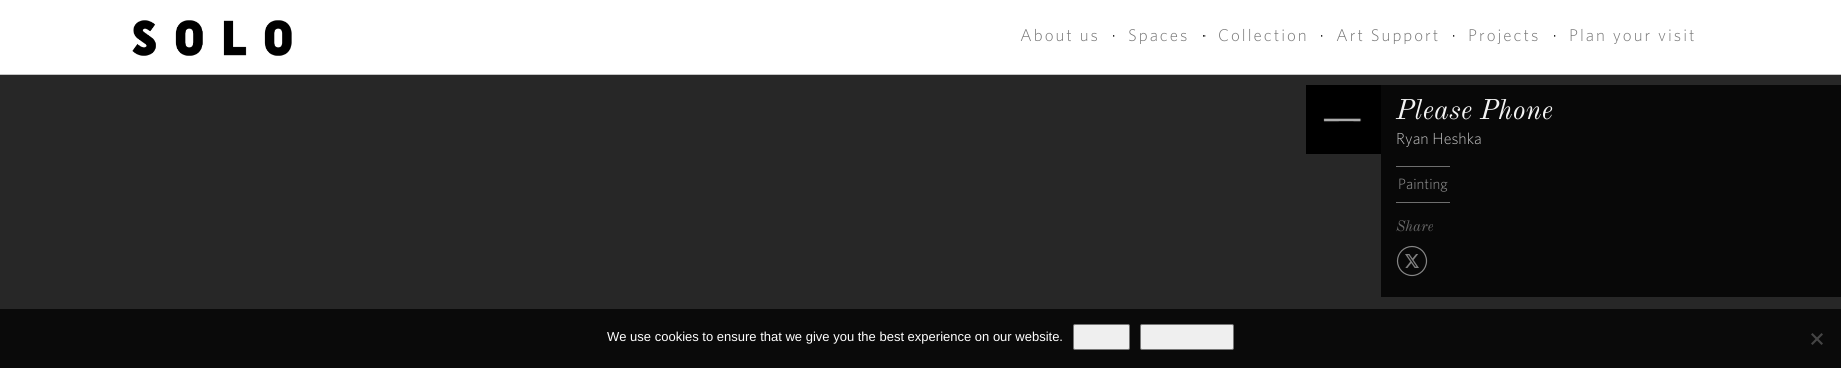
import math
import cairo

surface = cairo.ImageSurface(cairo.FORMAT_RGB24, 1841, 368)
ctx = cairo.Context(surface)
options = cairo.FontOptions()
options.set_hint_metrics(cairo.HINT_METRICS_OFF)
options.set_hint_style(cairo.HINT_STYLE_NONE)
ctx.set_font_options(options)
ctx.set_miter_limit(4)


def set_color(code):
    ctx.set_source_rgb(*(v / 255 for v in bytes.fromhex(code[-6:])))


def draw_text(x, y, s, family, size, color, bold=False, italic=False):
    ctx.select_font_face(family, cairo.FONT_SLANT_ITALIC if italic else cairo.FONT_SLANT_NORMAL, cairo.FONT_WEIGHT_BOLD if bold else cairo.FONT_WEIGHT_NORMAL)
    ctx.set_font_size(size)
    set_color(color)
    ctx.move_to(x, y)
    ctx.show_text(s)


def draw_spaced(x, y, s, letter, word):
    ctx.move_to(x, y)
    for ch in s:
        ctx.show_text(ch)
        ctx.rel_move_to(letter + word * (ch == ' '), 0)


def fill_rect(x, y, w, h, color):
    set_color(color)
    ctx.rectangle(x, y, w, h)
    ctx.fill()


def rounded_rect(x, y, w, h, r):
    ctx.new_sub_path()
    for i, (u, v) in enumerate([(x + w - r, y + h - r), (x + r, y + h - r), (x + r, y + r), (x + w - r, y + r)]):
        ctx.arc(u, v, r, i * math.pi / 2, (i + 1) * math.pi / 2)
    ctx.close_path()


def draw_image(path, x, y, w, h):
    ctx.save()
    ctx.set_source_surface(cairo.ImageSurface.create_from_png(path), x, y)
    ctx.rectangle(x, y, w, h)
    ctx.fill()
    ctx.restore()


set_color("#ffffff")
ctx.paint()
draw_image("assets/img1.png", 132, 20, 160, 36)
ctx.select_font_face("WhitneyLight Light")
ctx.set_font_size(17)
set_color("#777777")
draw_spaced(1020, 41, "About us", 2, 0)
draw_image("assets/img2.png", 1113, 35, 2, 2)
draw_spaced(1128, 41, "Spaces", 2, 0)
draw_image("assets/img3.png", 1203, 35, 3, 2)
draw_spaced(1218, 41, "Collection", 2, 0)
draw_image("assets/img2.png", 1321, 35, 2, 2)
draw_spaced(1336, 41, "Art Support", 2, 0)
draw_image("assets/img2.png", 1453, 35, 2, 2)
draw_spaced(1468, 41, "Projects", 2, 0)
draw_image("assets/img2.png", 1554, 35, 2, 2)
draw_spaced(1569, 41, "Plan your visit", 2, 0)
fill_rect(0, 74, 1841, 1, "#c5c5c5")
fill_rect(0, 75, 1841, 234, "#272727")
draw_image("assets/img4.png", 1306, 85, 75, 69)
fill_rect(1381, 85, 460, 212, "#080808")
draw_text(1396, 119, "Please Phone", "Old Standard TT", 28, "#f3f3f3", italic=True)
draw_text(1396, 144, "Ryan Heshka", "WhitneyLight Light", 16, "#c3c3c3")
fill_rect(1396, 166, 54, 1, "#6e6e6e")
fill_rect(1396, 202, 54, 1, "#6e6e6e")
draw_text(1398, 189, "Painting", "WhitneyLight Light", 15, "#999999")
draw_text(1396, 231, "Share", "Old Standard TT", 15, "#686868", italic=True)
draw_image("assets/img5.png", 1396, 245, 32, 32)
fill_rect(0, 309, 1841, 59, "#0a0a0a")
draw_text(607, 341, "We use cookies to ensure that we give you the best experience on our website.", "Liberation Sans", 13, "#ffffff")
set_color("#efefef")
rounded_rect(1073.5, 324.5, 56, 25, 1.5)
ctx.fill_preserve()
set_color("#767676")
ctx.set_line_width(1)
ctx.stroke()
set_color("#efefef")
rounded_rect(1140.5, 324.5, 93, 25, 1.5)
ctx.fill_preserve()
set_color("#767676")
ctx.stroke()
set_color("#454545")
ctx.new_path()
ctx.move_to(1821.5, 333)
ctx.line_to(1823, 334.5)
ctx.line_to(1812.5, 345)
ctx.line_to(1811, 343.5)
ctx.close_path()
ctx.fill()
ctx.new_path()
ctx.move_to(1811, 334.5)
ctx.line_to(1812.5, 333)
ctx.line_to(1823, 343.5)
ctx.line_to(1821.5, 345)
ctx.close_path()
ctx.fill()
surface.write_to_png("output.png")
